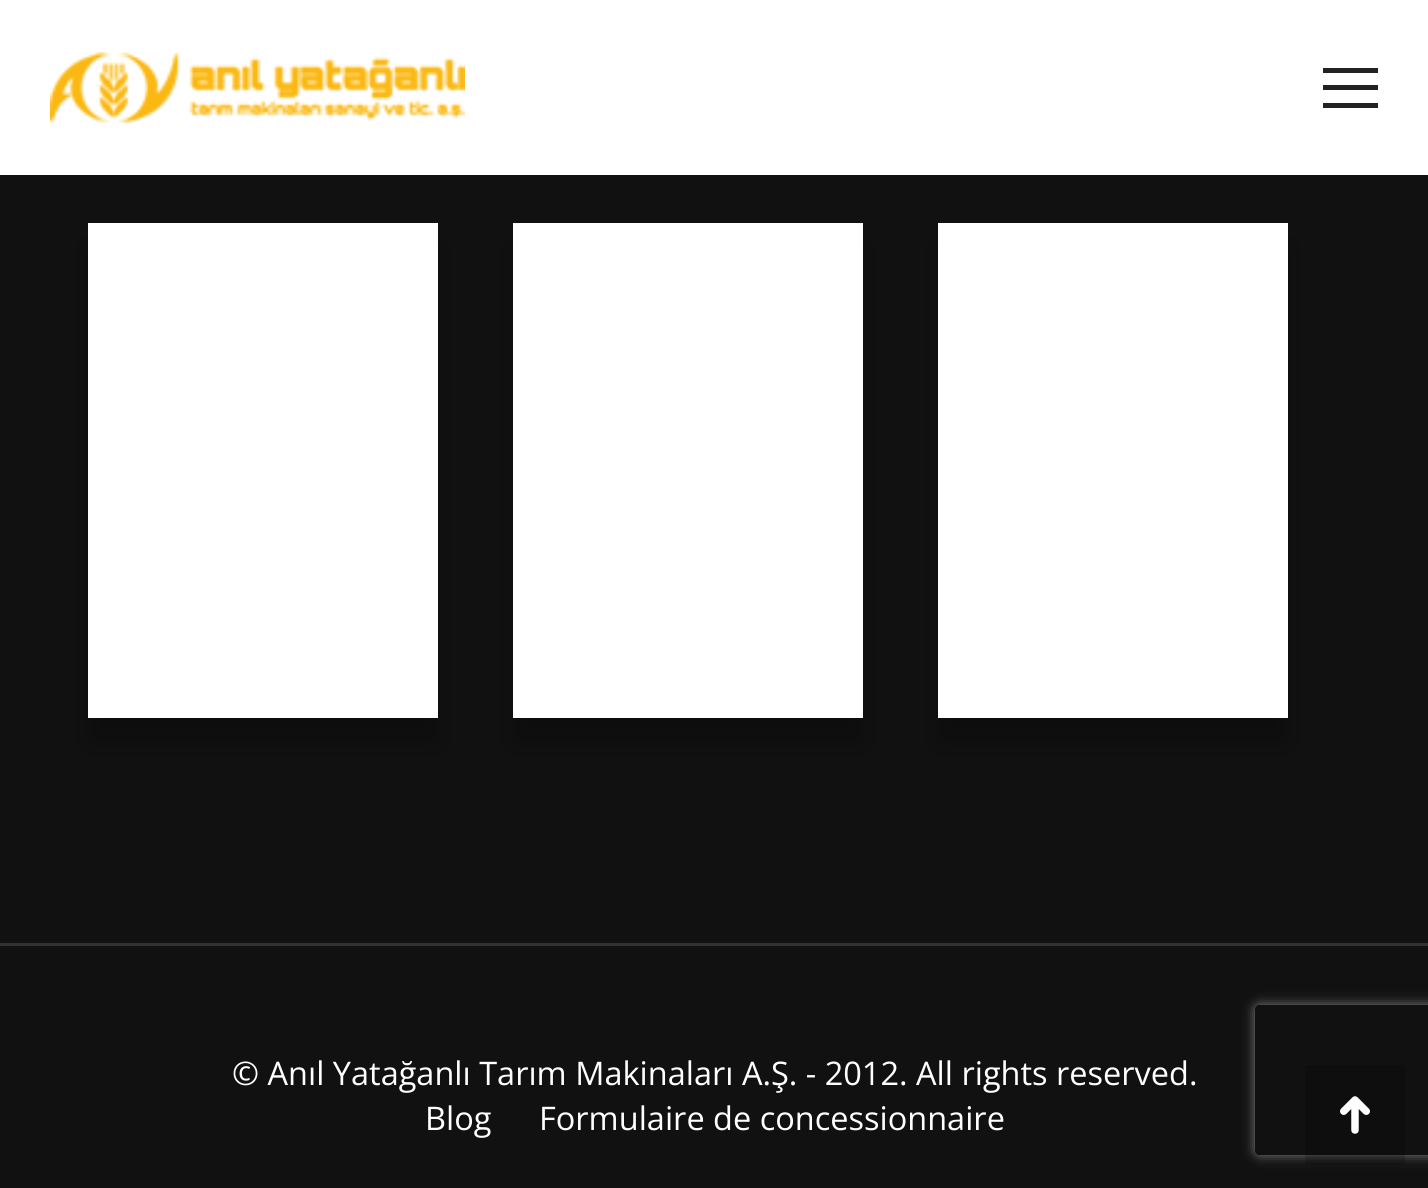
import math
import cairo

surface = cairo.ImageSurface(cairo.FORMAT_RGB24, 1428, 1188)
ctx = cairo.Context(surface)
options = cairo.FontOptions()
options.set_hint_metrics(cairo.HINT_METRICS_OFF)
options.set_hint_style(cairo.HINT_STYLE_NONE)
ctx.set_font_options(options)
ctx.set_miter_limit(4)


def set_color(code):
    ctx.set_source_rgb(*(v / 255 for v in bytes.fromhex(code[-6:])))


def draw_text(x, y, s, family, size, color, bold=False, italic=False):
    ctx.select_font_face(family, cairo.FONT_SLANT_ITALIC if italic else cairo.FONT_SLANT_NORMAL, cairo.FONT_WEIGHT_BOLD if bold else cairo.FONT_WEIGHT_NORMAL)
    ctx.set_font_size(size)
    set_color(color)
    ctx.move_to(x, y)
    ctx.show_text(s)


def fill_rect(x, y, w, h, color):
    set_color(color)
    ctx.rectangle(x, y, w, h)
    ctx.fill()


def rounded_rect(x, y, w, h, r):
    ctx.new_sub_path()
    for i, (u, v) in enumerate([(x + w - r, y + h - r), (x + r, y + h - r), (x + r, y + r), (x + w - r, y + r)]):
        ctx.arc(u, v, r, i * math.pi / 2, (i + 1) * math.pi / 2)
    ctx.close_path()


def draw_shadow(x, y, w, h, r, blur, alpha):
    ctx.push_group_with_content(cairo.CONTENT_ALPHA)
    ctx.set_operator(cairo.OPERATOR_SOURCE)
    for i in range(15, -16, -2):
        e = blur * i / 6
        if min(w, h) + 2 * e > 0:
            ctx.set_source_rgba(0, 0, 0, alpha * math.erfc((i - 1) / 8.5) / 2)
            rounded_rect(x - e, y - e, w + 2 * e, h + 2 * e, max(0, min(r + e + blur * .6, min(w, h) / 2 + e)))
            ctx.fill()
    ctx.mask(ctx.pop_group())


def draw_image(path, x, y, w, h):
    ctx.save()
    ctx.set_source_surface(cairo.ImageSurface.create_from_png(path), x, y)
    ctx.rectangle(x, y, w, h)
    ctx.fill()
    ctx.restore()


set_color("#111111")
ctx.paint()
fill_rect(0, 0, 1428, 175, "#ffffff")
draw_image("assets/img1.png", 50, 51, 415, 73)
fill_rect(1323, 68, 55, 5, "#222222")
fill_rect(1323, 85, 55, 5, "#222222")
fill_rect(1323, 103, 55, 5, "#222222")
fill_rect(88, 223, 350, 495, "#ffffff")
ctx.save()
ctx.set_fill_rule(cairo.FILL_RULE_EVEN_ODD)
ctx.new_path()
ctx.move_to(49, 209)
ctx.line_to(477, 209)
ctx.line_to(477, 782)
ctx.line_to(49, 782)
ctx.close_path()
ctx.move_to(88, 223)
ctx.line_to(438, 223)
ctx.line_to(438, 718)
ctx.line_to(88, 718)
ctx.close_path()
ctx.clip()
set_color("#000000")
draw_shadow(88, 248, 350, 495, 0, 12.5, 0.24)
ctx.restore()
fill_rect(513, 223, 350, 495, "#ffffff")
ctx.save()
ctx.set_fill_rule(cairo.FILL_RULE_EVEN_ODD)
ctx.new_path()
ctx.move_to(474, 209)
ctx.line_to(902, 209)
ctx.line_to(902, 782)
ctx.line_to(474, 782)
ctx.close_path()
ctx.move_to(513, 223)
ctx.line_to(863, 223)
ctx.line_to(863, 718)
ctx.line_to(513, 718)
ctx.close_path()
ctx.clip()
set_color("#000000")
draw_shadow(513, 248, 350, 495, 0, 12.5, 0.24)
ctx.restore()
fill_rect(938, 223, 350, 495, "#ffffff")
ctx.save()
ctx.set_fill_rule(cairo.FILL_RULE_EVEN_ODD)
ctx.new_path()
ctx.move_to(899, 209)
ctx.line_to(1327, 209)
ctx.line_to(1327, 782)
ctx.line_to(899, 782)
ctx.close_path()
ctx.move_to(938, 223)
ctx.line_to(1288, 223)
ctx.line_to(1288, 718)
ctx.line_to(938, 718)
ctx.close_path()
ctx.clip()
set_color("#000000")
draw_shadow(938, 248, 350, 495, 0, 12.5, 0.24)
ctx.restore()
fill_rect(0, 943, 1428, 3, "#323232")
draw_text(232, 1085, "© Anıl Yatağanlı Tarım Makinaları A.Ş. - 2012. All rights reserved.", "Open Sans", 32.5, "#ffffff")
draw_text(425, 1130, "Blog", "Open Sans", 32.5, "#ffffff")
draw_text(539, 1130, "Formulaire de concessionnaire", "Open Sans", 32.5, "#ffffff")
ctx.save()
ctx.set_fill_rule(cairo.FILL_RULE_EVEN_ODD)
ctx.new_path()
ctx.move_to(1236, 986)
ctx.line_to(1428, 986)
ctx.line_to(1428, 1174)
ctx.line_to(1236, 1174)
ctx.close_path()
ctx.move_to(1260, 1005)
ctx.line_to(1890, 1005)
ctx.curve_to(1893, 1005, 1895, 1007, 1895, 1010)
ctx.line_to(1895, 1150)
ctx.curve_to(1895, 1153, 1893, 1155, 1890, 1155)
ctx.line_to(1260, 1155)
ctx.curve_to(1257, 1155, 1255, 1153, 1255, 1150)
ctx.line_to(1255, 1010)
ctx.curve_to(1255, 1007, 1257, 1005, 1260, 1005)
ctx.close_path()
ctx.clip()
set_color("#808080")
draw_shadow(1255, 1005, 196, 150, 5, 6, 1)
ctx.restore()
ctx.set_source_rgba(0, 0, 0, 0.2)
ctx.rectangle(1305, 1065, 100, 100)
ctx.fill()
draw_image("assets/img2.png", 1340, 1096, 30, 38)
surface.write_to_png("output.png")
